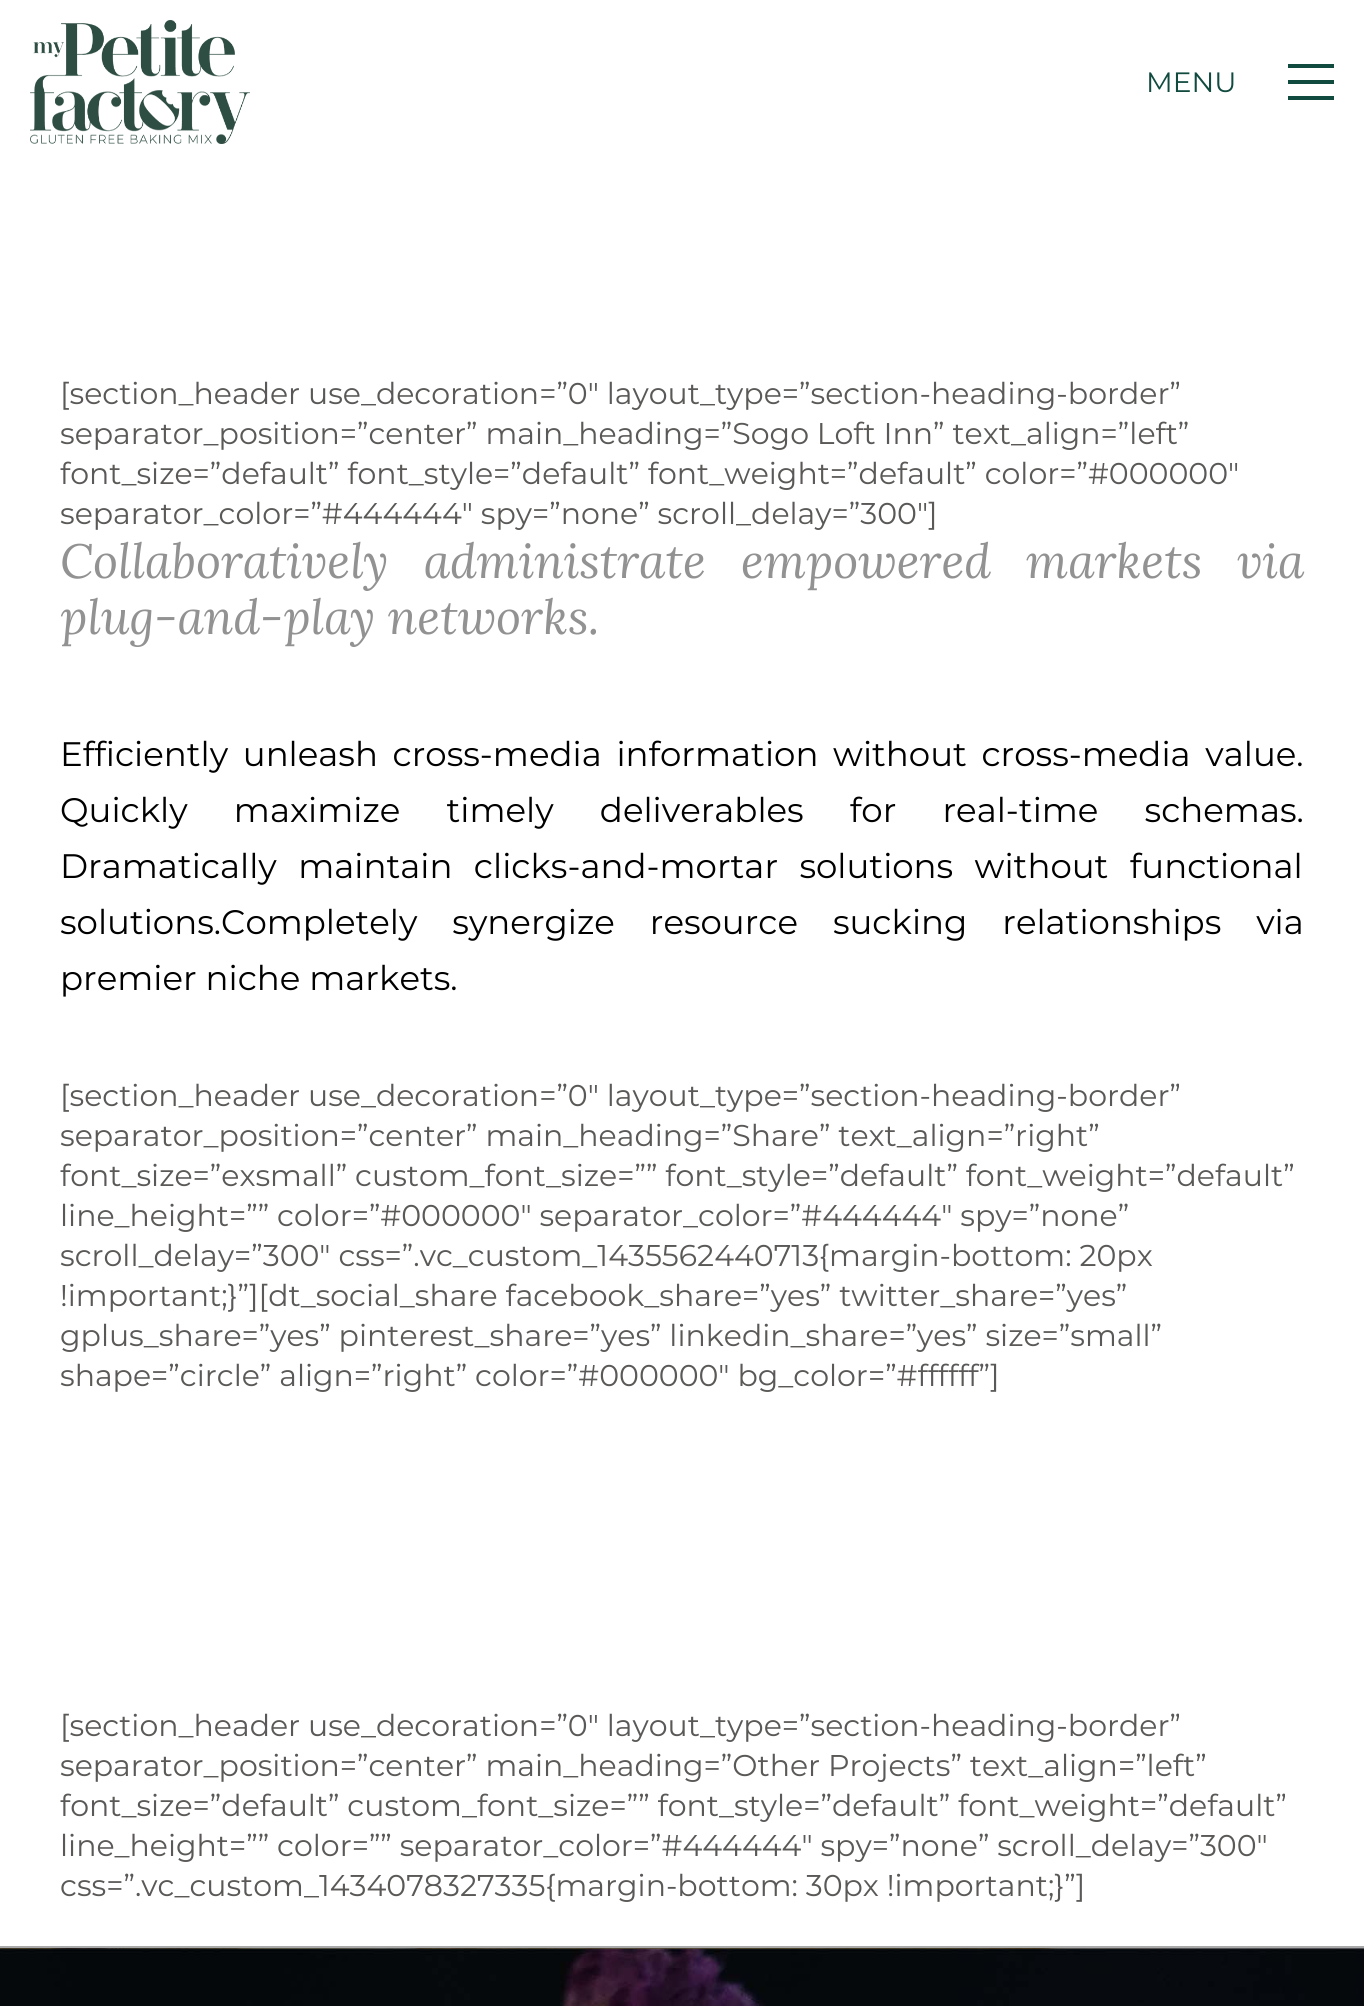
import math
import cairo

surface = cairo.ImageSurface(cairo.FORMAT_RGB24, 1364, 2006)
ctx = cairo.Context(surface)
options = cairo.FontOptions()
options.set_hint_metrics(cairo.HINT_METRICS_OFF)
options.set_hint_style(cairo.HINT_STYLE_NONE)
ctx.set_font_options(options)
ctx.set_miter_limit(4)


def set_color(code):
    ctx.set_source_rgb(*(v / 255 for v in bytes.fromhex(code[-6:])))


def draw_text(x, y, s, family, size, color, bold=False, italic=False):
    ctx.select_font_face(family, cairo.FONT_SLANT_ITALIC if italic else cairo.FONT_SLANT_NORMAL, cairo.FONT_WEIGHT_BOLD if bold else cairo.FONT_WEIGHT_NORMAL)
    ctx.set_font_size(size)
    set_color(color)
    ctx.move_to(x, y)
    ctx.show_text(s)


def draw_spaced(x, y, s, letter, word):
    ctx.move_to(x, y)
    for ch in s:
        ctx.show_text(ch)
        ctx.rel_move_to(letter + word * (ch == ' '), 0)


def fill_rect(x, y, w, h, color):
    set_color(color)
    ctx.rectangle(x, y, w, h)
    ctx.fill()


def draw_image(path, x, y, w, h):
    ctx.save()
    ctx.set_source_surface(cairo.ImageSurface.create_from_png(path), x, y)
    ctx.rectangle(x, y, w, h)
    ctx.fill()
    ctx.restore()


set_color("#ffffff")
ctx.paint()
draw_image("assets/img1.png", 30, 20, 220, 124)
draw_text(1146, 92, "MENU", "Montserrat", 28, "#114a3f")
fill_rect(1288, 64, 46, 4, "#114a3f")
fill_rect(1288, 80, 46, 4, "#114a3f")
fill_rect(1288, 96, 46, 4, "#114a3f")
draw_text(60, 404, "[section_header use_decoration=”0″ layout_type=”section-heading-border”", "Montserrat", 30, "#5a5957")
draw_text(60, 444, "separator_position=”center” main_heading=”Sogo Loft Inn” text_align=”left”", "Montserrat", 30, "#5a5957")
draw_text(60, 484, "font_size=”default” font_style=”default” font_weight=”default” color=”#000000″", "Montserrat", 30, "#5a5957")
draw_text(60, 524, "separator_color=”#444444″ spy=”none” scroll_delay=”300″]", "Montserrat", 30, "#5a5957")
ctx.select_font_face("Lora", cairo.FONT_SLANT_ITALIC)
ctx.set_font_size(48)
set_color("#929292")
draw_spaced(60, 578, "Collaboratively administrate empowered markets via", 0, 22.5)
draw_text(60, 634, "plug-and-play networks.", "Lora", 48, "#929292", italic=True)
ctx.select_font_face("Montserrat")
ctx.set_font_size(34)
set_color("#000000")
draw_spaced(60, 766, "Efficiently unleash cross-media information without cross-media value.", 0, 5.75)
draw_spaced(60, 822, "Quickly maximize timely deliverables for real-time schemas.", 0, 37.25)
draw_spaced(60, 878, "Dramatically maintain clicks-and-mortar solutions without functional", 0, 12.5)
draw_spaced(60, 934, "solutions.Completely synergize resource sucking relationships via", 0, 26)
draw_text(60, 990, "premier niche markets.", "Montserrat", 34, "#000000")
draw_text(60, 1106, "[section_header use_decoration=”0″ layout_type=”section-heading-border”", "Montserrat", 30, "#5a5957")
draw_text(60, 1146, "separator_position=”center” main_heading=”Share” text_align=”right”", "Montserrat", 30, "#5a5957")
draw_text(60, 1186, "font_size=”exsmall” custom_font_size=”” font_style=”default” font_weight=”default”", "Montserrat", 30, "#5a5957")
draw_text(60, 1226, "line_height=”” color=”#000000″ separator_color=”#444444″ spy=”none”", "Montserrat", 30, "#5a5957")
draw_text(60, 1266, "scroll_delay=”300″ css=”.vc_custom_1435562440713{margin-bottom: 20px", "Montserrat", 30, "#5a5957")
draw_text(60, 1306, "!important;}”][dt_social_share facebook_share=”yes” twitter_share=”yes”", "Montserrat", 30, "#5a5957")
draw_text(60, 1346, "gplus_share=”yes” pinterest_share=”yes” linkedin_share=”yes” size=”small”", "Montserrat", 30, "#5a5957")
draw_text(60, 1386, "shape=”circle” align=”right” color=”#000000″ bg_color=”#ffffff”]", "Montserrat", 30, "#5a5957")
draw_text(60, 1736, "[section_header use_decoration=”0″ layout_type=”section-heading-border”", "Montserrat", 30, "#5a5957")
draw_text(60, 1776, "separator_position=”center” main_heading=”Other Projects” text_align=”left”", "Montserrat", 30, "#5a5957")
draw_text(60, 1816, "font_size=”default” custom_font_size=”” font_style=”default” font_weight=”default”", "Montserrat", 30, "#5a5957")
draw_text(60, 1856, "line_height=”” color=”” separator_color=”#444444″ spy=”none” scroll_delay=”300″", "Montserrat", 30, "#5a5957")
draw_text(60, 1896, "css=”.vc_custom_1434078327335{margin-bottom: 30px !important;}”]", "Montserrat", 30, "#5a5957")
draw_image("assets/img2.png", 0, 1948, 1364, 58)
fill_rect(0, 1946, 1364, 2, "#a9a9a9")
surface.write_to_png("output.png")
